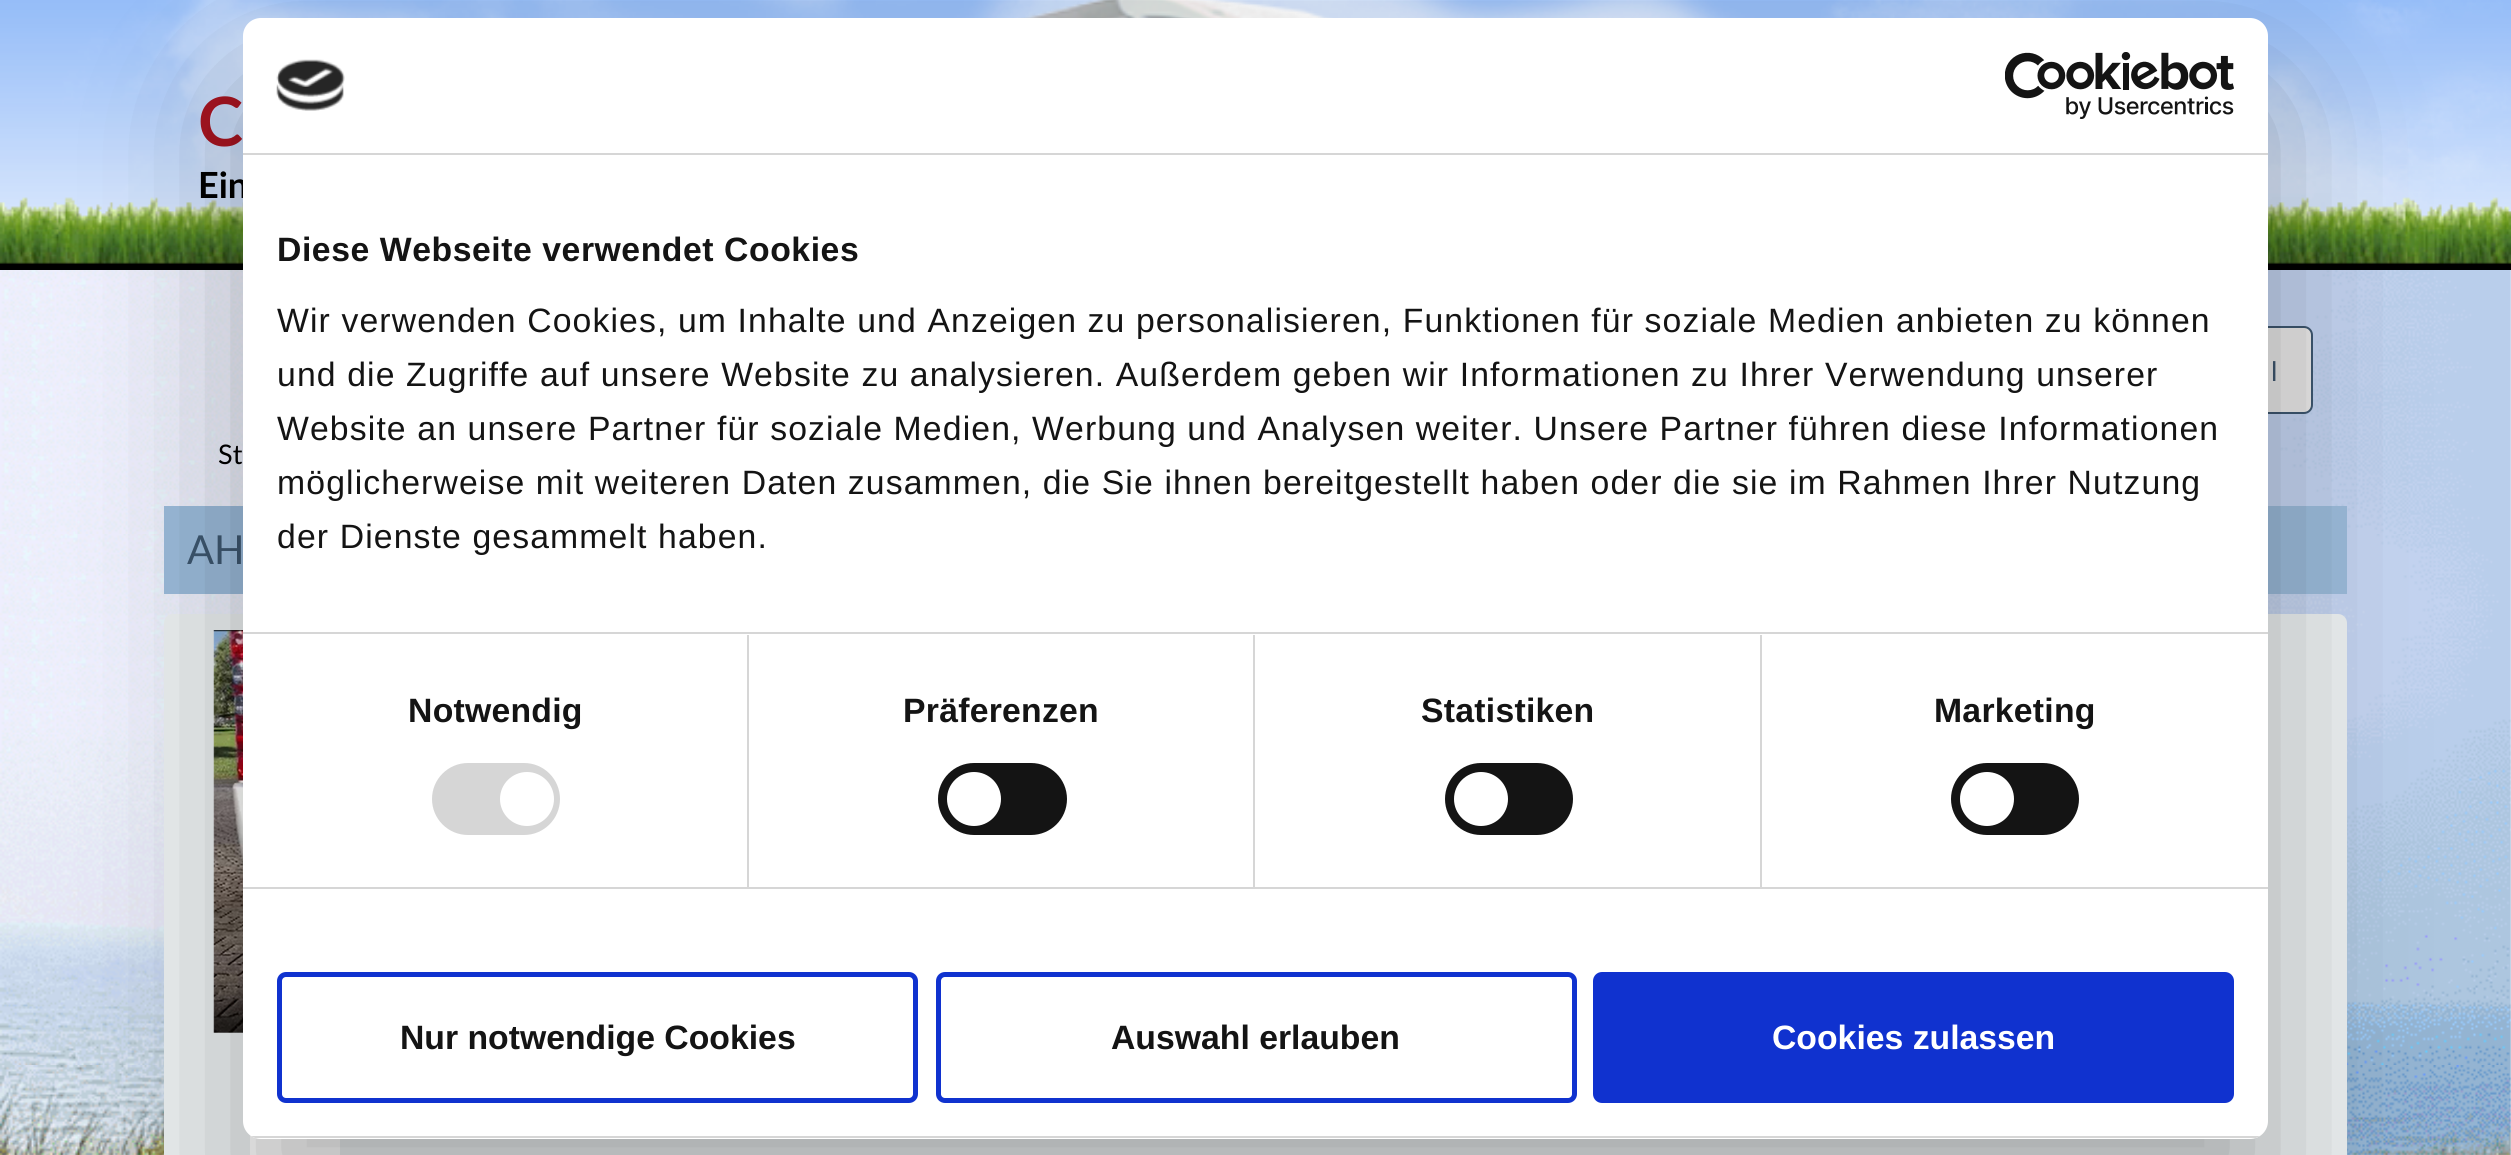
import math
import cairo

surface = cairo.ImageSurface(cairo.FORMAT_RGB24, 2511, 1155)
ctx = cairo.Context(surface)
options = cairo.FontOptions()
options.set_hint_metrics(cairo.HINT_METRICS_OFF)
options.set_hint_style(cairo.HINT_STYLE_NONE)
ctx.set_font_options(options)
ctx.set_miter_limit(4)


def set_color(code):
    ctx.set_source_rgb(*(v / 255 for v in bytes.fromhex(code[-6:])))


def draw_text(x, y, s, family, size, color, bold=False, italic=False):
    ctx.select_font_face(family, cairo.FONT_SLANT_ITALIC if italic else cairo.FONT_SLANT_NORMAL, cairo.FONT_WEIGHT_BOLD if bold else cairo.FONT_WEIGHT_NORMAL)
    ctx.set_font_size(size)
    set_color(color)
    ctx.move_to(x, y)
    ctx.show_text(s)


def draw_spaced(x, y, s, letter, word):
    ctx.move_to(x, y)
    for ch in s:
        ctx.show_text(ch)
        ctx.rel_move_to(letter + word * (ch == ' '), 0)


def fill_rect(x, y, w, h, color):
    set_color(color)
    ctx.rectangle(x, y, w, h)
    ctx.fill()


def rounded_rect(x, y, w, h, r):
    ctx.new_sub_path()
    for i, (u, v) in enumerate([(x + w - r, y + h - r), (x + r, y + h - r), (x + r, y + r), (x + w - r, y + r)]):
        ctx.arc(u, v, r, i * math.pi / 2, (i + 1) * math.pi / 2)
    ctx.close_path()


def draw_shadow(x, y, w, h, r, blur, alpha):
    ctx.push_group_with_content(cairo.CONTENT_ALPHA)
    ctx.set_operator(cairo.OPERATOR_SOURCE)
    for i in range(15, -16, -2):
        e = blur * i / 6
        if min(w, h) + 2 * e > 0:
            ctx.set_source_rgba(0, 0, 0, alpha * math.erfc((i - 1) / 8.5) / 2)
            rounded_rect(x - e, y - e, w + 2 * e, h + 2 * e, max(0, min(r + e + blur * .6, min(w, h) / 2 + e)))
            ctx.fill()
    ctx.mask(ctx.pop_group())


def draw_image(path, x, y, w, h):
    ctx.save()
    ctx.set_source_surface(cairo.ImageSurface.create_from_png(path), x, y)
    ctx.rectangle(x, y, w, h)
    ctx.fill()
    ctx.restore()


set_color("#ffffff")
ctx.paint()
draw_image("assets/img1.png", 0, 270, 2511, 885)
draw_image("assets/img2.png", 0, 0, 2511, 270)
draw_image("assets/img3.png", 1017, 0, 315, 18)
draw_text(198, 146, "C", "Lato", 68, "#a81421", bold=True)
draw_text(198, 198, "Ein", "Lato", 36, "#000000", bold=True)
set_color("#e8e7e7")
rounded_rect(1932, 327, 380, 86, 8)
ctx.fill_preserve()
set_color("#3d566f")
ctx.stroke()
draw_text(2271, 381, "l", "Lato", 27, "#3d566f")
draw_text(218, 464, "St", "Lato", 27, "#000000")
fill_rect(164, 506, 2183, 88, "#9bbbda")
draw_text(187, 564, "AH", "Lato", 40, "#3d566f")
set_color("#ecf0f1")
rounded_rect(164, 614, 2183, 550, 9)
ctx.fill()
draw_image("assets/img4.png", 213, 630, 30, 403)
fill_rect(250, 1135, 90, 20, "#ffffff")
set_color("#000000")
draw_shadow(243, 90, 2025, 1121, 18, 76.5, 0.3)
set_color("#ffffff")
rounded_rect(243, 18, 2025, 1121, 18)
ctx.fill()
fill_rect(243, 153, 2025, 2, "#d6d6d6")
draw_image("assets/img5.png", 276, 59, 69, 52)
draw_image("assets/img6.png", 2005, 52, 229, 67)
fill_rect(243, 632, 2025, 2, "#d6d6d6")
ctx.select_font_face("Liberation Sans", cairo.FONT_SLANT_NORMAL, cairo.FONT_WEIGHT_BOLD)
ctx.set_font_size(33.75)
set_color("#141414")
draw_spaced(277, 261, "Diese Webseite verwendet Cookies", 0.55, 0)
ctx.select_font_face("Liberation Sans")
draw_spaced(277, 332, "Wir verwenden Cookies, um Inhalte und Anzeigen zu personalisieren, Funktionen für soziale Medien anbieten zu können", 1.12, 0)
draw_spaced(277, 386, "und die Zugriffe auf unsere Website zu analysieren. Außerdem geben wir Informationen zu Ihrer Verwendung unserer", 1.12, 0)
draw_spaced(277, 440, "Website an unsere Partner für soziale Medien, Werbung und Analysen weiter. Unsere Partner führen diese Informationen", 1.12, 0)
draw_spaced(277, 494, "möglicherweise mit weiteren Daten zusammen, die Sie ihnen bereitgestellt haben oder die sie im Rahmen Ihrer Nutzung", 1.12, 0)
draw_spaced(277, 548, "der Dienste gesammelt haben.", 1.12, 0)
fill_rect(243, 887, 2025, 2, "#d6d6d6")
fill_rect(747, 635, 2, 252, "#d6d6d6")
ctx.select_font_face("Liberation Sans", cairo.FONT_SLANT_NORMAL, cairo.FONT_WEIGHT_BOLD)
set_color("#141414")
draw_spaced(408, 722, "Notwendig", 0.25, 0)
set_color("#d6d6d6")
rounded_rect(432, 763, 128, 72, 36)
ctx.fill()
set_color("#ffffff")
ctx.arc(527, 799, 27, 0, 2 * math.pi)
ctx.fill()
fill_rect(1253, 635, 2, 252, "#d6d6d6")
set_color("#141414")
draw_spaced(903, 722, "Präferenzen", 0.25, 0)
rounded_rect(938, 763, 129, 72, 36)
ctx.fill()
set_color("#ffffff")
ctx.arc(974, 799, 27, 0, 2 * math.pi)
ctx.fill()
fill_rect(1760, 635, 2, 252, "#d6d6d6")
set_color("#141414")
draw_spaced(1421, 722, "Statistiken", 0.25, 0)
rounded_rect(1445, 763, 128, 72, 36)
ctx.fill()
set_color("#ffffff")
ctx.arc(1481, 799, 27, 0, 2 * math.pi)
ctx.fill()
set_color("#141414")
draw_spaced(1934, 722, "Marketing", 0.25, 0)
rounded_rect(1951, 763, 128, 72, 36)
ctx.fill()
set_color("#ffffff")
ctx.arc(1987, 799, 27, 0, 2 * math.pi)
ctx.fill()
ctx.save()
rounded_rect(243, 18, 2025, 1121, 18)
ctx.clip()
fill_rect(243, 1136, 2025, 2, "#d6d6d6")
ctx.restore()
rounded_rect(279.5, 974.5, 636, 126, 6.5)
set_color("#1032cf")
ctx.set_line_width(5)
ctx.stroke()
draw_text(400, 1049, "Nur notwendige Cookies", "Liberation Sans", 33.75, "#141414", bold=True)
rounded_rect(938.5, 974.5, 636, 126, 6.5)
set_color("#1032cf")
ctx.stroke()
draw_text(1111, 1049, "Auswahl erlauben", "Liberation Sans", 33.75, "#141414", bold=True)
set_color("#1032cf")
rounded_rect(1595.5, 974.5, 636, 126, 6.5)
ctx.fill_preserve()
ctx.stroke()
draw_text(1772, 1049, "Cookies zulassen", "Liberation Sans", 33.75, "#ffffff", bold=True)
surface.write_to_png("output.png")
